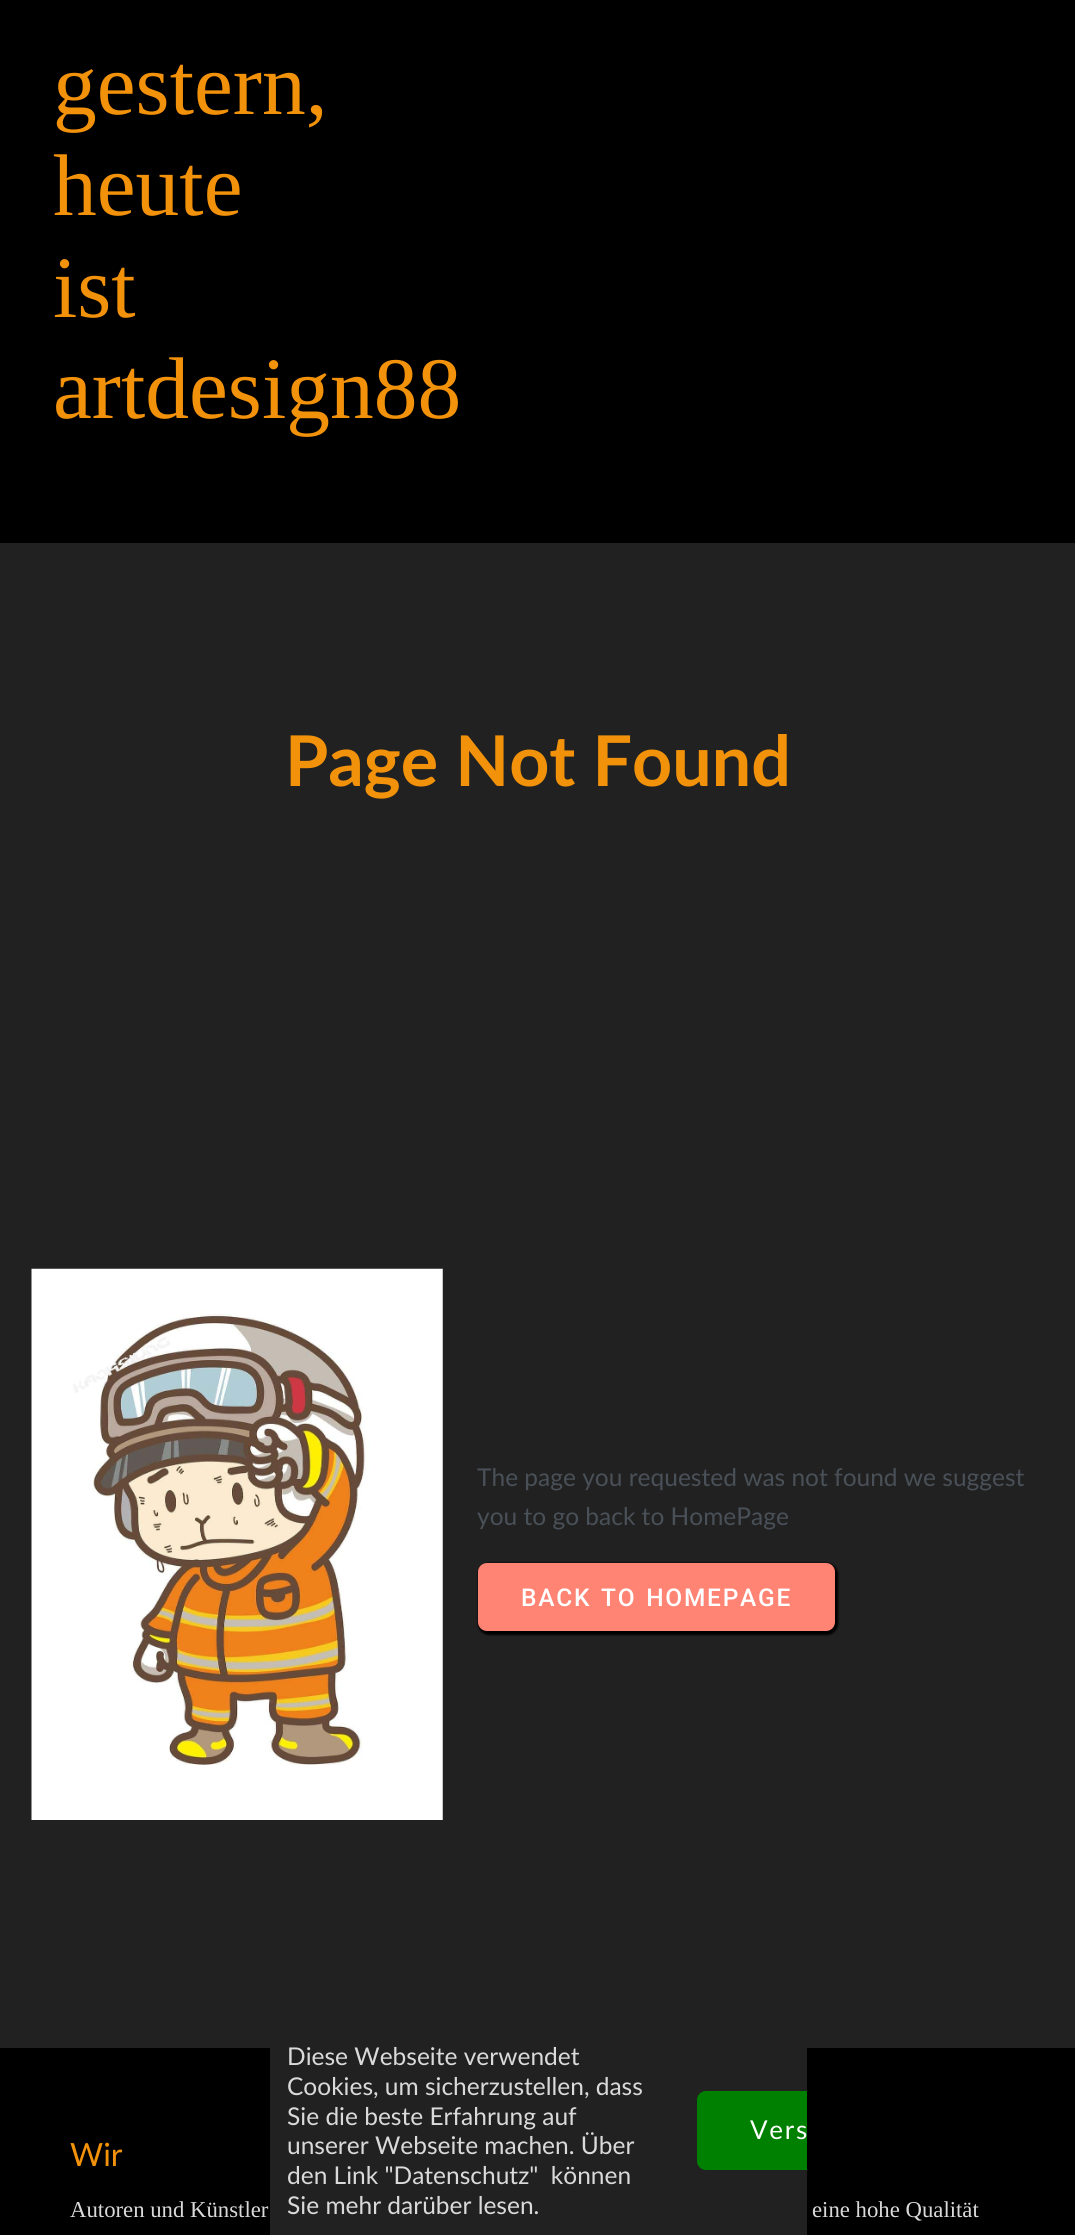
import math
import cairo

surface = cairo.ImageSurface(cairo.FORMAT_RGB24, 1075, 2235)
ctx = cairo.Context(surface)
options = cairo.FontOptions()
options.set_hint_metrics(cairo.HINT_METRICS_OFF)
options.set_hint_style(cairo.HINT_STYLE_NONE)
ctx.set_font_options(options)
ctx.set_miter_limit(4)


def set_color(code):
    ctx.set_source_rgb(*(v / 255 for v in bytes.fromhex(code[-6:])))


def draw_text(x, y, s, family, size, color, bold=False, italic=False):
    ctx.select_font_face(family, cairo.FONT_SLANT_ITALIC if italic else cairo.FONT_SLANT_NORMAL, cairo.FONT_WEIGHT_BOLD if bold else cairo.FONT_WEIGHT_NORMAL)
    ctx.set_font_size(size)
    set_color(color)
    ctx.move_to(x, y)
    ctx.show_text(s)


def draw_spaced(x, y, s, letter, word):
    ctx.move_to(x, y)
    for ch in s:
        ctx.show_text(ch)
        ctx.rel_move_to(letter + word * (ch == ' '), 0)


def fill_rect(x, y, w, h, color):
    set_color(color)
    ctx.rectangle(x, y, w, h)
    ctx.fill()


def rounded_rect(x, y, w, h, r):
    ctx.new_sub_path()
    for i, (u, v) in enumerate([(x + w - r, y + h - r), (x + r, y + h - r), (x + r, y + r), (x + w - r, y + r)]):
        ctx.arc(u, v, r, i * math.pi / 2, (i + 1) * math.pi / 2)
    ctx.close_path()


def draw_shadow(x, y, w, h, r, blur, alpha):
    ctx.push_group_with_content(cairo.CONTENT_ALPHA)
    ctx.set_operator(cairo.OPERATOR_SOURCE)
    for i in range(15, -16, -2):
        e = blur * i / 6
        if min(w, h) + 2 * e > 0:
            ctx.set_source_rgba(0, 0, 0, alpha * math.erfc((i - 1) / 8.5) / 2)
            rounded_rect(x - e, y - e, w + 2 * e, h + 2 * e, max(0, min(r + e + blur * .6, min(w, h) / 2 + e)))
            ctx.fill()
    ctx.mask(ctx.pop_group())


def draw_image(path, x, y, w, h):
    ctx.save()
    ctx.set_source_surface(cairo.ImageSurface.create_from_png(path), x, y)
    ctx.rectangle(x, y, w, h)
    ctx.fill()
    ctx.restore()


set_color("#212121")
ctx.paint()
fill_rect(0, 0, 1075, 543, "#000000")
draw_text(53, 114, "gestern,", "Liberation Serif", 87.5, "#f2910a")
draw_text(53, 215, "heute", "Liberation Serif", 87.5, "#f2910a")
draw_text(53, 317, "ist", "Liberation Serif", 87.5, "#f2910a")
draw_text(53, 418, "artdesign88", "Liberation Serif", 87.5, "#f2910a")
draw_text(285, 786, "Page Not Found", "Lato", 70, "#f2910a", bold=True)
draw_image("assets/img1.png", 31, 1268, 412, 552)
draw_text(477, 1486, "The page you requested was not found we suggest", "Lato", 24.5, "#495057")
draw_text(477, 1525, "you to go back to HomePage", "Lato", 24.5, "#495057")
set_color("#000000")
draw_shadow(478, 1563, 360, 72, 11, 1, 1)
set_color("#ff8474")
rounded_rect(478, 1563, 357, 68, 9)
ctx.fill()
ctx.select_font_face("Roboto Medium")
set_color("#ffffff")
draw_spaced(521, 1606, "BACK TO HOMEPAGE", 1.75, 2)
fill_rect(0, 2048, 1075, 187, "#000000")
fill_rect(270, 2048, 537, 187, "#212121")
draw_text(287, 2065, "Diese Webseite verwendet", "Lato", 24.5, "#dadada")
draw_text(287, 2095, "Cookies, um sicherzustellen, dass", "Lato", 24.5, "#dadada")
draw_text(287, 2125, "Sie die beste Erfahrung auf", "Lato", 24.5, "#dadada")
draw_text(287, 2154, "unserer Webseite machen. Über", "Lato", 24.5, "#dadada")
draw_text(287, 2184, "den Link \"Datenschutz\"  können", "Lato", 24.5, "#dadada")
draw_text(287, 2214, "Sie mehr darüber lesen.", "Lato", 24.5, "#dadada")
set_color("#008000")
ctx.new_path()
ctx.move_to(706, 2091)
ctx.line_to(807, 2091)
ctx.line_to(807, 2170)
ctx.line_to(706, 2170)
ctx.curve_to(701, 2170, 697, 2166, 697, 2161)
ctx.line_to(697, 2100)
ctx.curve_to(697, 2095, 701, 2091, 706, 2091)
ctx.close_path()
ctx.fill()
ctx.set_font_size(26)
set_color("#ffffff")
draw_spaced(750, 2139, "Vers", 1.75, 0)
draw_text(70, 2166, "Wir", "Lato", 32, "#f2910a")
draw_text(70, 2217, "Autoren und Künstler", "Liberation Serif", 22.75, "#dadada")
draw_text(812, 2217, "eine hohe Qualität", "Liberation Serif", 22.75, "#dadada")
surface.write_to_png("output.png")
